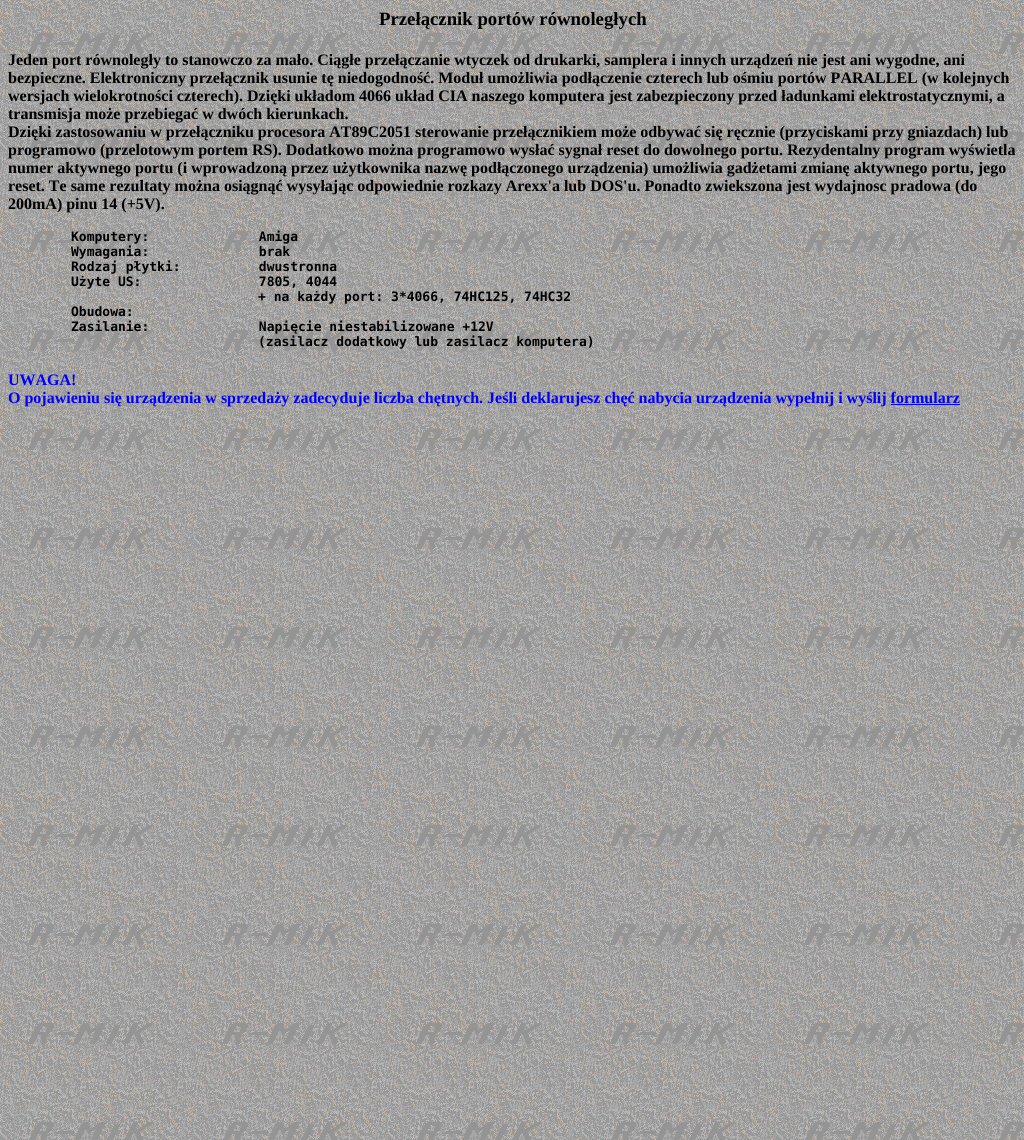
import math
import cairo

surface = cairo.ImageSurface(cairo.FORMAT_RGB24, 1024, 1140)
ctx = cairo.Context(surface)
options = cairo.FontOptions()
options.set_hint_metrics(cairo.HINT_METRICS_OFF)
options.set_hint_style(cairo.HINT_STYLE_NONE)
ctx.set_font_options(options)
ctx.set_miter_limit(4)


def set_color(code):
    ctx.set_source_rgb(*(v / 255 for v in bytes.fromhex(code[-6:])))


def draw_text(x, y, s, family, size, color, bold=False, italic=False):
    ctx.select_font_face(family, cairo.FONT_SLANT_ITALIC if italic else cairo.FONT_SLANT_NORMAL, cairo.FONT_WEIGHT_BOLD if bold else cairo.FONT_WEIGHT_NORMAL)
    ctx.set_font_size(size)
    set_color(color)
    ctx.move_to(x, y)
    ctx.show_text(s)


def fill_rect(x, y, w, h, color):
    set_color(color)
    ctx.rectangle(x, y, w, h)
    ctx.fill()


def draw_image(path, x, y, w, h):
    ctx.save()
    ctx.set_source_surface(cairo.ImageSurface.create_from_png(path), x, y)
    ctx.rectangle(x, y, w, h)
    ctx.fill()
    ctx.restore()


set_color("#ffffff")
ctx.paint()
draw_image("assets/img1.png", 0, 0, 1024, 1140)
draw_text(379, 25, "Przełącznik portów równoległych", "Liberation Serif", 18.75, "#000000", bold=True)
draw_text(8, 65, "Jeden port równoległy to stanowczo za mało. Ciągłe przełączanie wtyczek od drukarki, samplera i innych urządzeń nie jest ani wygodne, ani", "Liberation Serif", 16, "#000000", bold=True)
draw_text(8, 83, "bezpieczne. Elektroniczny przełącznik usunie tę niedogodność. Moduł umożliwia podłączenie czterech lub ośmiu portów PARALLEL (w kolejnych", "Liberation Serif", 16, "#000000", bold=True)
draw_text(8, 101, "wersjach wielokrotności czterech). Dzięki układom 4066 układ CIA naszego komputera jest zabezpieczony przed ładunkami elektrostatycznymi, a", "Liberation Serif", 16, "#000000", bold=True)
draw_text(8, 119, "transmisja może przebiegać w dwóch kierunkach.", "Liberation Serif", 16, "#000000", bold=True)
draw_text(8, 137, "Dzięki zastosowaniu w przełączniku procesora AT89C2051 sterowanie przełącznikiem może odbywać się ręcznie (przyciskami przy gniazdach) lub", "Liberation Serif", 16, "#000000", bold=True)
draw_text(8, 155, "programowo (przelotowym portem RS). Dodatkowo można programowo wysłać sygnał reset do dowolnego portu. Rezydentalny program wyświetla", "Liberation Serif", 16, "#000000", bold=True)
draw_text(8, 173, "numer aktywnego portu (i wprowadzoną przez użytkownika nazwę podłączonego urządzenia) umożliwia gadżetami zmianę aktywnego portu, jego", "Liberation Serif", 16, "#000000", bold=True)
draw_text(8, 191, "reset. Te same rezultaty można osiągnąć wysyłając odpowiednie rozkazy Arexx'a lub DOS'u. Ponadto zwiekszona jest wydajnosc pradowa (do", "Liberation Serif", 16, "#000000", bold=True)
draw_text(8, 209, "200mA) pinu 14 (+5V).", "Liberation Serif", 16, "#000000", bold=True)
draw_text(71, 241, "Komputery:              Amiga", "DejaVu Sans Mono", 13, "#000000", bold=True)
draw_text(71, 256, "Wymagania:              brak", "DejaVu Sans Mono", 13, "#000000", bold=True)
draw_text(71, 271, "Rodzaj płytki:          dwustronna", "DejaVu Sans Mono", 13, "#000000", bold=True)
draw_text(71, 286, "Użyte US:               7805, 4044", "DejaVu Sans Mono", 13, "#000000", bold=True)
draw_text(258, 301, "+ na każdy port: 3*4066, 74HC125, 74HC32", "DejaVu Sans Mono", 13, "#000000", bold=True)
draw_text(71, 316, "Obudowa:", "DejaVu Sans Mono", 13, "#000000", bold=True)
draw_text(71, 331, "Zasilanie:              Napięcie niestabilizowane +12V", "DejaVu Sans Mono", 13, "#000000", bold=True)
draw_text(258, 346, "(zasilacz dodatkowy lub zasilacz komputera)", "DejaVu Sans Mono", 13, "#000000", bold=True)
draw_text(8, 385, "UWAGA!", "Liberation Serif", 16, "#0000ff", bold=True)
draw_text(8, 403, "O pojawieniu się urządzenia w sprzedaży zadecyduje liczba chętnych. Jeśli deklarujesz chęć nabycia urządzenia wypełnij i wyślij formularz", "Liberation Serif", 16, "#0000ff", bold=True)
fill_rect(891, 404, 69, 1, "#0000ff")
surface.write_to_png("output.png")
